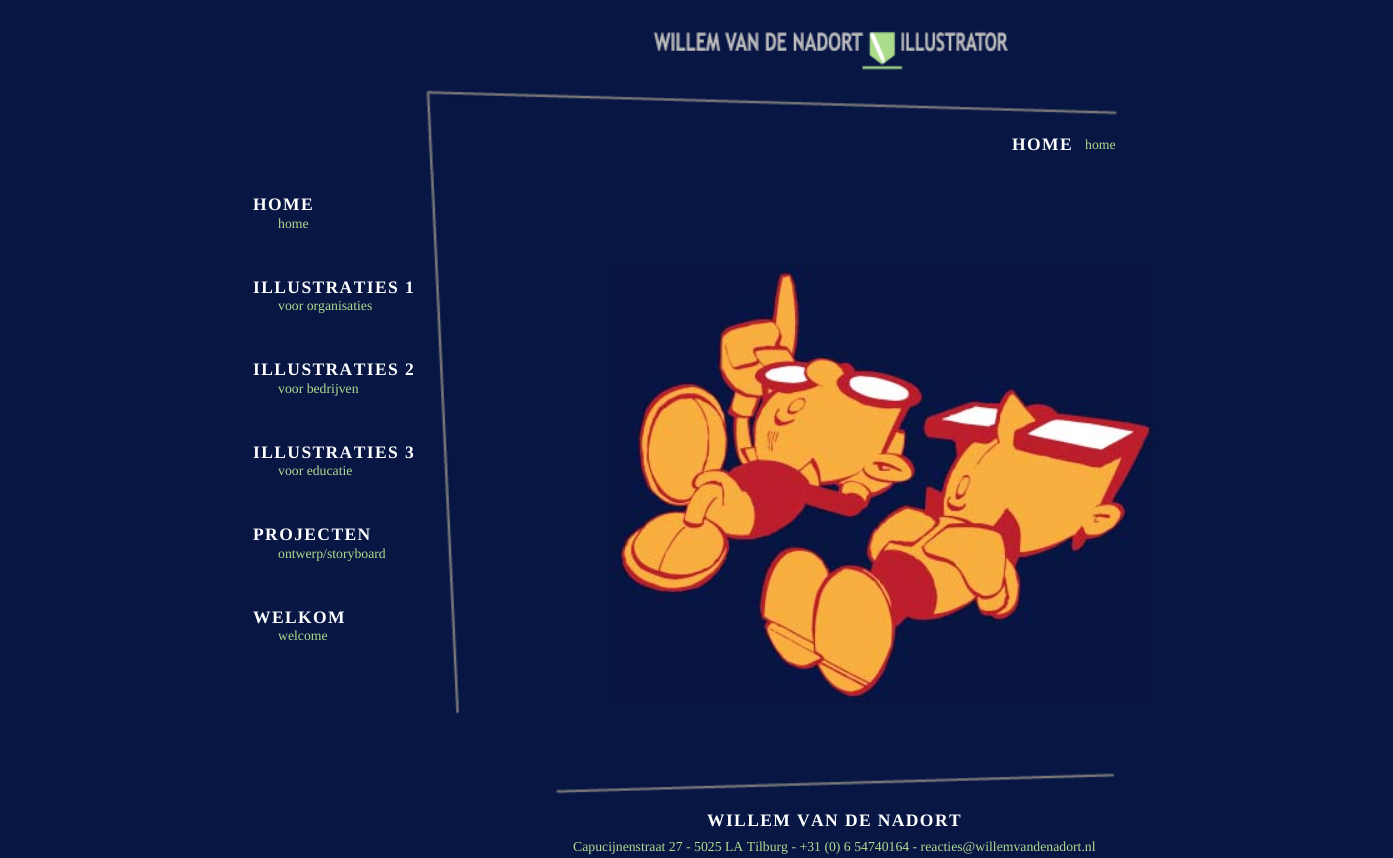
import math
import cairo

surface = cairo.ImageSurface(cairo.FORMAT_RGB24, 1393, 858)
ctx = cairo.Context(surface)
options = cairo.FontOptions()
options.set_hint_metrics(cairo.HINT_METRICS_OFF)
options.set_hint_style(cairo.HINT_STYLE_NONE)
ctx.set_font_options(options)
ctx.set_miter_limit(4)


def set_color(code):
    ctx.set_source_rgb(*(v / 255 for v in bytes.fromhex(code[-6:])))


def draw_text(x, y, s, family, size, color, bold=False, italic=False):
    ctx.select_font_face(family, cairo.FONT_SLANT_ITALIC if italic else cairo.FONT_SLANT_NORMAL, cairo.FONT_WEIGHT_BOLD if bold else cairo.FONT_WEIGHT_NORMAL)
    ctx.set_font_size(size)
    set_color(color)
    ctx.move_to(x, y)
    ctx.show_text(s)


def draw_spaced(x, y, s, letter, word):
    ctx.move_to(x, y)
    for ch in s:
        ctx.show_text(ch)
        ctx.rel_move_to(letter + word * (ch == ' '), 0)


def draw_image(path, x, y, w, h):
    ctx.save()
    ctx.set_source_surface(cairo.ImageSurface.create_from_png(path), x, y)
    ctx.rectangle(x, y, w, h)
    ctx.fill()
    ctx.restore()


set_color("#081644")
ctx.paint()
draw_image("assets/img1.png", 426, 31, 691, 104)
draw_image("assets/img2.png", 428, 134, 6, 37)
ctx.select_font_face("Liberation Serif", cairo.FONT_SLANT_NORMAL, cairo.FONT_WEIGHT_BOLD)
ctx.set_font_size(17.5)
set_color("#ffffff")
draw_spaced(1012, 150, "HOME", 1.4, 0)
draw_text(1085, 149, "home", "Liberation Serif", 13.75, "#abdc8c")
draw_image("assets/img3.png", 430, 170, 29, 544)
ctx.select_font_face("Liberation Serif", cairo.FONT_SLANT_NORMAL, cairo.FONT_WEIGHT_BOLD)
ctx.set_font_size(17.5)
set_color("#ffffff")
draw_spaced(253, 210, "HOME", 1.4, 0)
draw_text(278, 228, "home", "Liberation Serif", 13.75, "#abdc8c")
ctx.select_font_face("Liberation Serif", cairo.FONT_SLANT_NORMAL, cairo.FONT_WEIGHT_BOLD)
ctx.set_font_size(17.5)
set_color("#ffffff")
draw_spaced(253, 293, "ILLUSTRATIES 1", 1.4, 0)
draw_text(278, 310, "voor organisaties", "Liberation Serif", 13.75, "#abdc8c")
ctx.select_font_face("Liberation Serif", cairo.FONT_SLANT_NORMAL, cairo.FONT_WEIGHT_BOLD)
ctx.set_font_size(17.5)
set_color("#ffffff")
draw_spaced(253, 375, "ILLUSTRATIES 2", 1.4, 0)
draw_text(278, 393, "voor bedrijven", "Liberation Serif", 13.75, "#abdc8c")
ctx.select_font_face("Liberation Serif", cairo.FONT_SLANT_NORMAL, cairo.FONT_WEIGHT_BOLD)
ctx.set_font_size(17.5)
set_color("#ffffff")
draw_spaced(253, 458, "ILLUSTRATIES 3", 1.4, 0)
draw_text(278, 475, "voor educatie", "Liberation Serif", 13.75, "#abdc8c")
ctx.select_font_face("Liberation Serif", cairo.FONT_SLANT_NORMAL, cairo.FONT_WEIGHT_BOLD)
ctx.set_font_size(17.5)
set_color("#ffffff")
draw_spaced(253, 540, "PROJECTEN", 1.4, 0)
draw_text(278, 558, "ontwerp/storyboard", "Liberation Serif", 13.75, "#abdc8c")
ctx.select_font_face("Liberation Serif", cairo.FONT_SLANT_NORMAL, cairo.FONT_WEIGHT_BOLD)
ctx.set_font_size(17.5)
set_color("#ffffff")
draw_spaced(253, 623, "WELKOM", 1.4, 0)
draw_text(278, 640, "welcome", "Liberation Serif", 13.75, "#abdc8c")
draw_image("assets/img4.png", 610, 263, 543, 442)
draw_image("assets/img5.png", 556, 773, 558, 21)
ctx.select_font_face("Liberation Serif", cairo.FONT_SLANT_NORMAL, cairo.FONT_WEIGHT_BOLD)
ctx.set_font_size(17.5)
set_color("#ffffff")
draw_spaced(707, 826, "WILLEM VAN DE NADORT", 1.4, 0)
draw_text(573, 851, "Capucijnenstraat 27 - 5025 LA Tilburg - +31 (0) 6 54740164 - reacties@willemvandenadort.nl", "Liberation Serif", 13.75, "#abdc8c")
surface.write_to_png("output.png")
